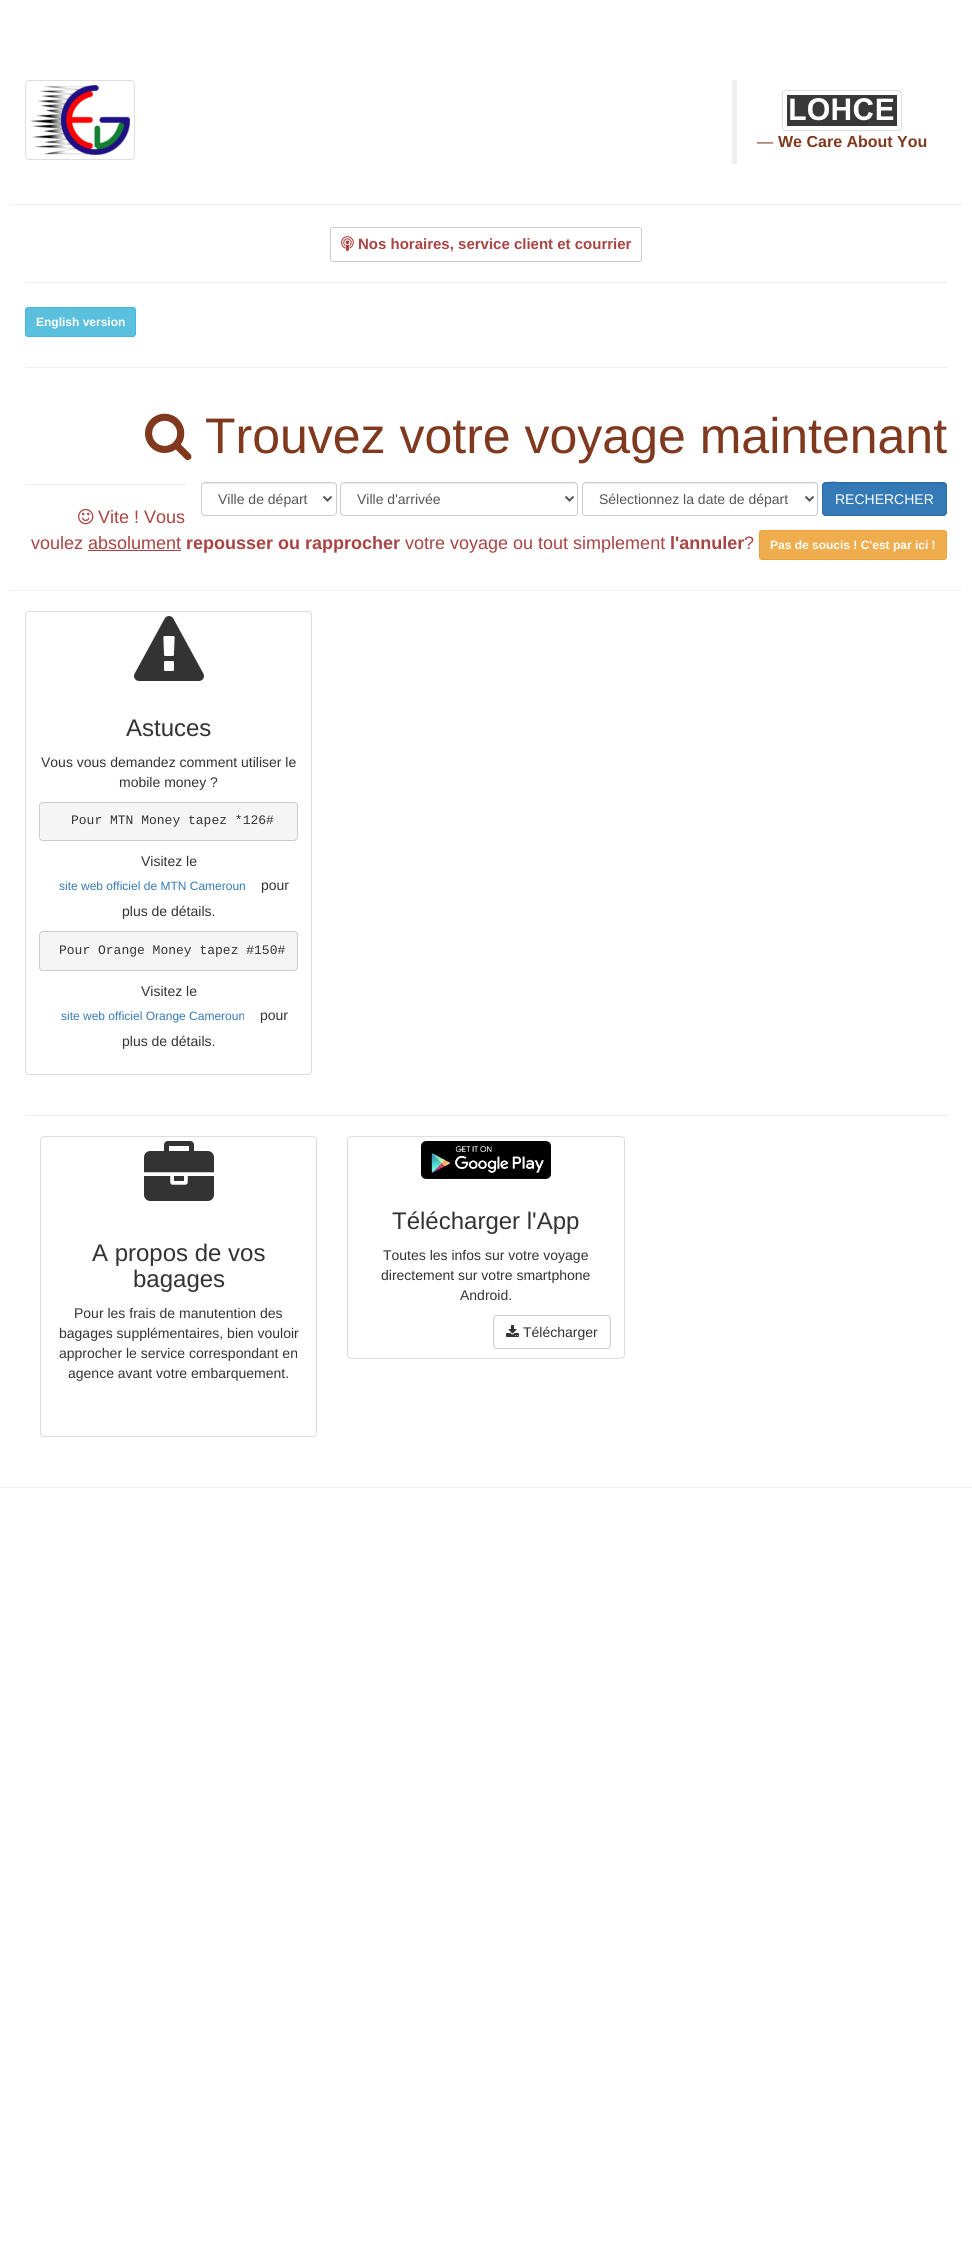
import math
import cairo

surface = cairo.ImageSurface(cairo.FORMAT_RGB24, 972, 2266)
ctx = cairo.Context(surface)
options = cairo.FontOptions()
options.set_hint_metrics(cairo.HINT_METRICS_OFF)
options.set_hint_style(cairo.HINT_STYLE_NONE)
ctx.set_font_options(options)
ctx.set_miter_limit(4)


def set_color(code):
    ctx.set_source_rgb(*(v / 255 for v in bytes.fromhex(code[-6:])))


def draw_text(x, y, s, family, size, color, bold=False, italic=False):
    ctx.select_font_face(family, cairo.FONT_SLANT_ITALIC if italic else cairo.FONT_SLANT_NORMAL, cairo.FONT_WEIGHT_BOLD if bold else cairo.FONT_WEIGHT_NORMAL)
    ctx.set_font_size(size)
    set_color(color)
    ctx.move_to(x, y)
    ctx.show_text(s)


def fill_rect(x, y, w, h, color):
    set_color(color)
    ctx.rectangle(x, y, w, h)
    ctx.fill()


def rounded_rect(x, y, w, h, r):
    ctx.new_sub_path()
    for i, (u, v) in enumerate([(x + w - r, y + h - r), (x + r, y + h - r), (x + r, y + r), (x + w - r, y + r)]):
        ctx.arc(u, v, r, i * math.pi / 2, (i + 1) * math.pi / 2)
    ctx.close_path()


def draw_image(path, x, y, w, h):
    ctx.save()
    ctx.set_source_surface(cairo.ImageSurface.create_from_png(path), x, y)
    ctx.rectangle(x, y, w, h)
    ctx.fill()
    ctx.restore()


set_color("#ffffff")
ctx.paint()
rounded_rect(25.5, 80.5, 109, 79, 3.5)
set_color("#dddddd")
ctx.set_line_width(1)
ctx.stroke()
draw_image("assets/img1.png", 30, 85, 100, 70)
fill_rect(732, 80, 5, 84, "#eeeeee")
rounded_rect(782.5, 90.5, 119, 40, 3.5)
set_color("#dddddd")
ctx.stroke()
draw_image("assets/img2.png", 787, 95, 110, 31)
draw_text(757, 147, "—", "Liberation Sans", 16, "#80391e")
draw_text(778, 147, "We Care About You", "Liberation Sans", 16, "#80391e", bold=True)
fill_rect(10, 204, 952, 1, "#eeeeee")
rounded_rect(330.5, 227.5, 311, 34, 2.5)
set_color("#cccccc")
ctx.stroke()
draw_image("assets/img3.png", 341, 236, 13, 16)
draw_text(358, 249, "Nos horaires, service client et courrier", "Liberation Sans", 15, "#a94442", bold=True)
fill_rect(25, 282, 922, 1, "#eeeeee")
set_color("#5bc0de")
rounded_rect(25.5, 307.5, 110, 29, 2.5)
ctx.fill_preserve()
set_color("#46b8da")
ctx.stroke()
draw_text(36, 326, "English version", "Liberation Sans", 12, "#ffffff", bold=True)
fill_rect(25, 367, 922, 1, "#eeeeee")
draw_image("assets/img4.png", 145, 413, 47, 48)
draw_text(205, 453, "Trouvez votre voyage maintenant", "Liberation Sans", 50, "#80391e")
set_color("#ececec")
ctx.new_path()
ctx.move_to(205, 484)
ctx.line_to(333, 484)
ctx.curve_to(335, 484, 336, 485, 336, 487)
ctx.curve_to(336, 485, 336, 483, 334, 483)
ctx.line_to(204, 483)
ctx.curve_to(202, 483, 202, 485, 202, 487)
ctx.curve_to(202, 485, 203, 484, 205, 484)
ctx.close_path()
ctx.fill()
rounded_rect(201.5, 482.5, 135, 33, 3.5)
set_color("#cccccc")
ctx.stroke()
ctx.new_path()
ctx.move_to(323.5, 496.5)
ctx.line_to(327.5, 500.5)
ctx.line_to(331.5, 496.5)
set_color("#555555")
ctx.set_line_width(2)
ctx.stroke()
draw_text(218, 504, "Ville de départ", "Liberation Sans", 14, "#555555")
set_color("#ececec")
ctx.new_path()
ctx.move_to(344, 484)
ctx.line_to(575, 484)
ctx.line_to(577, 485)
ctx.line_to(577, 487)
ctx.curve_to(577, 485, 576, 483, 574, 483)
ctx.line_to(344, 483)
ctx.curve_to(342, 483, 341, 485, 341, 487)
ctx.curve_to(341, 485, 342, 484, 344, 484)
ctx.close_path()
ctx.fill()
rounded_rect(340.5, 482.5, 237, 33, 3.5)
set_color("#cccccc")
ctx.set_line_width(1)
ctx.stroke()
ctx.new_path()
ctx.move_to(565.5, 496.5)
ctx.line_to(569.5, 500.5)
ctx.line_to(573.5, 496.5)
set_color("#555555")
ctx.set_line_width(2)
ctx.stroke()
draw_text(357, 504, "Ville d'arrivée", "Liberation Sans", 14, "#555555")
set_color("#ececec")
ctx.new_path()
ctx.move_to(586, 484)
ctx.line_to(814, 484)
ctx.curve_to(816, 484, 817, 485, 817, 487)
ctx.curve_to(817, 485, 816, 483, 814, 483)
ctx.line_to(586, 483)
ctx.curve_to(584, 483, 583, 485, 583, 487)
ctx.curve_to(583, 485, 584, 484, 586, 484)
ctx.close_path()
ctx.fill()
rounded_rect(582.5, 482.5, 235, 33, 3.5)
set_color("#cccccc")
ctx.set_line_width(1)
ctx.stroke()
ctx.new_path()
ctx.move_to(805.5, 496.5)
ctx.line_to(809.5, 500.5)
ctx.line_to(813.5, 496.5)
set_color("#555555")
ctx.set_line_width(2)
ctx.stroke()
draw_text(599, 504, "Sélectionnez la date de départ", "Liberation Sans", 14, "#555555")
set_color("#337ab7")
rounded_rect(822, 482, 125, 34, 4)
ctx.fill()
set_color("#2f71a9")
ctx.new_path()
ctx.move_to(826, 484)
ctx.line_to(943, 484)
ctx.curve_to(945, 484, 946, 485, 946, 487)
ctx.curve_to(946, 485, 945, 483, 943, 483)
ctx.line_to(846, 483)
ctx.curve_to(845, 483, 823, 478, 823, 487)
ctx.curve_to(823, 485, 824, 484, 826, 484)
ctx.close_path()
ctx.fill()
rounded_rect(822.5, 482.5, 124, 33, 3.5)
set_color("#2e6da4")
ctx.set_line_width(1)
ctx.stroke()
draw_text(835, 504, "RECHERCHER", "Liberation Sans", 14, "#ffffff")
fill_rect(25, 484, 161, 1, "#eeeeee")
draw_image("assets/img5.png", 78, 508, 16, 17)
draw_text(98, 523, "Vite ! Vous", "Liberation Sans", 18, "#a94442")
draw_text(31, 549, "voulez absolument", "Liberation Sans", 18, "#a94442")
draw_text(186, 549, "repousser ou rapprocher", "Liberation Sans", 18, "#a94442", bold=True)
draw_text(405, 549, "votre voyage ou tout simplement", "Liberation Sans", 18, "#a94442")
draw_text(670, 549, "l'annuler", "Liberation Sans", 18, "#a94442", bold=True)
draw_text(744, 549, "?", "Liberation Sans", 18, "#a94442")
fill_rect(88, 550, 93, 1, "#a94442")
set_color("#f0ad4e")
rounded_rect(759.5, 530.5, 187, 29, 2.5)
ctx.fill_preserve()
set_color("#eea236")
ctx.stroke()
draw_text(770, 549, "Pas de soucis ! C'est par ici !", "Liberation Sans", 12, "#ffffff", bold=True)
fill_rect(10, 590, 952, 1, "#eeeeee")
rounded_rect(25.5, 611.5, 286, 463, 3.5)
set_color("#dddddd")
ctx.stroke()
draw_image("assets/img6.png", 134, 616, 70, 65)
draw_text(126, 736, "Astuces", "Liberation Sans", 24, "#333333")
draw_text(41, 767, "Vous vous demandez comment utiliser le", "Liberation Sans", 14, "#333333")
draw_text(119, 787, "mobile money ?", "Liberation Sans", 14, "#333333")
set_color("#f5f5f5")
rounded_rect(39.5, 802.5, 258, 38, 3.5)
ctx.fill_preserve()
set_color("#cccccc")
ctx.stroke()
draw_text(71, 824, "Pour MTN Money tapez *126#", "Liberation Mono", 13, "#333333")
draw_text(141, 866, "Visitez le", "Liberation Sans", 14, "#333333")
draw_text(59, 890, "site web officiel de MTN Cameroun", "Liberation Sans", 12, "#337ab7")
draw_text(261, 890, "pour", "Liberation Sans", 14, "#333333")
draw_text(122, 916, "plus de détails.", "Liberation Sans", 14, "#333333")
set_color("#f5f5f5")
rounded_rect(39.5, 931.5, 258, 39, 3.5)
ctx.fill_preserve()
set_color("#cccccc")
ctx.stroke()
draw_text(59, 954, "Pour Orange Money tapez #150#", "Liberation Mono", 13, "#333333")
draw_text(141, 996, "Visitez le", "Liberation Sans", 14, "#333333")
draw_text(61, 1020, "site web officiel Orange Cameroun", "Liberation Sans", 12, "#337ab7")
draw_text(260, 1020, "pour", "Liberation Sans", 14, "#333333")
draw_text(122, 1046, "plus de détails.", "Liberation Sans", 14, "#333333")
fill_rect(25, 1115, 922, 1, "#eeeeee")
rounded_rect(40.5, 1136.5, 276, 300, 3.5)
set_color("#dddddd")
ctx.stroke()
draw_image("assets/img7.png", 144, 1141, 70, 60)
draw_text(92, 1261, "A propos de vos", "Liberation Sans", 24, "#333333")
draw_text(133, 1287, "bagages", "Liberation Sans", 24, "#333333")
draw_text(74, 1318, "Pour les frais de manutention des", "Liberation Sans", 14, "#333333")
draw_text(59, 1338, "bagages supplémentaires, bien vouloir", "Liberation Sans", 14, "#333333")
draw_text(59, 1358, "approcher le service correspondant en", "Liberation Sans", 14, "#333333")
draw_text(68, 1378, "agence avant votre embarquement.", "Liberation Sans", 14, "#333333")
rounded_rect(347.5, 1136.5, 277, 222, 3.5)
set_color("#dddddd")
ctx.stroke()
draw_image("assets/img8.png", 421, 1141, 130, 38)
draw_text(392, 1229, "Télécharger l'App", "Liberation Sans", 24, "#333333")
draw_text(383, 1260, "Toutes les infos sur votre voyage", "Liberation Sans", 14, "#333333")
draw_text(381, 1280, "directement sur votre smartphone", "Liberation Sans", 14, "#333333")
draw_text(460, 1300, "Android.", "Liberation Sans", 14, "#333333")
rounded_rect(493.5, 1315.5, 117, 33, 3.5)
set_color("#cccccc")
ctx.stroke()
draw_image("assets/img9.png", 506, 1325, 13, 12)
draw_text(523, 1337, "Télécharger", "Liberation Sans", 14, "#333333")
fill_rect(0, 1487, 972, 1, "#eeeeee")
surface.write_to_png("output.png")
